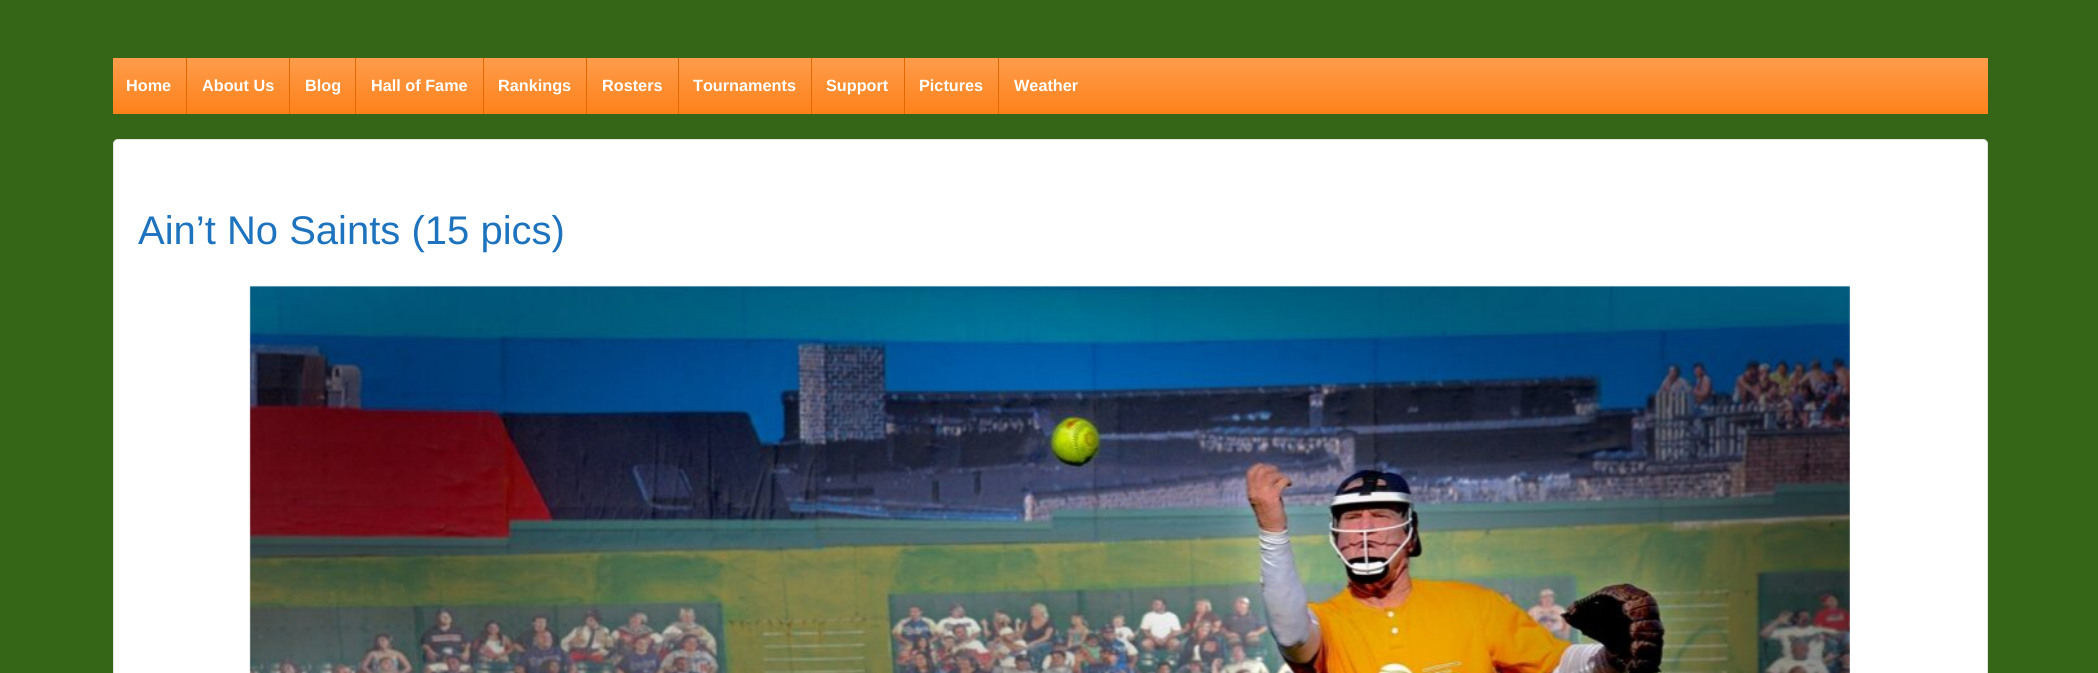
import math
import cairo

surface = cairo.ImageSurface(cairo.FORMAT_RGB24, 2098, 673)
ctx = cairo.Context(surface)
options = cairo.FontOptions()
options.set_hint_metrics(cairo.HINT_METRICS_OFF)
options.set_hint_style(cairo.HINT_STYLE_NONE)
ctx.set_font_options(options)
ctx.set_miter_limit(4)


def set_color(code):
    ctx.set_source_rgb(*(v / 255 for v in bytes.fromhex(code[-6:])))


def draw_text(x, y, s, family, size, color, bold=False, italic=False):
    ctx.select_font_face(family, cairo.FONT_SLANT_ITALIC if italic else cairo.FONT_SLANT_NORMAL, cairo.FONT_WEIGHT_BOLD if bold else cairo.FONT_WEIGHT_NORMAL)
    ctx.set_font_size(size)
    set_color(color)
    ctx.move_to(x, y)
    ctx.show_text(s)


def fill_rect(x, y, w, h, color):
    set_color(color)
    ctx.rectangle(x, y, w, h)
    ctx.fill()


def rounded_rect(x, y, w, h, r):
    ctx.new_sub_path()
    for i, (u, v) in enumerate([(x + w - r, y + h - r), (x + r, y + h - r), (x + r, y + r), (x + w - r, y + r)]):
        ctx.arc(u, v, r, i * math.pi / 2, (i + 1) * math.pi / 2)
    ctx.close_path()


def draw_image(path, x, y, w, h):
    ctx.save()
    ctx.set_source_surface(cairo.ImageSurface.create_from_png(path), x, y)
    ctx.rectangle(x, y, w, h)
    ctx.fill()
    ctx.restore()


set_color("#356617")
ctx.paint()
gradient = cairo.LinearGradient(1050, 57, 1050, 114)
gradient.add_color_stop_rgba(0, 0.996, 0.616, 0.302, 1)
gradient.add_color_stop_rgba(1, 0.996, 0.506, 0.102, 1)
ctx.set_source(gradient)
ctx.rectangle(113, 58, 1875, 56)
ctx.fill()
draw_text(126, 91, "Home", "Liberation Sans", 16.25, "#ffffff", bold=True)
fill_rect(186, 58, 1, 56, "#e46801")
draw_text(202, 91, "About Us", "Liberation Sans", 16.25, "#ffffff", bold=True)
fill_rect(289, 58, 1, 56, "#e46801")
draw_text(305, 91, "Blog", "Liberation Sans", 16.25, "#ffffff", bold=True)
fill_rect(355, 58, 1, 56, "#e46801")
draw_text(371, 91, "Hall of Fame", "Liberation Sans", 16.25, "#ffffff", bold=True)
fill_rect(483, 58, 1, 56, "#e46801")
draw_text(498, 91, "Rankings", "Liberation Sans", 16.25, "#ffffff", bold=True)
fill_rect(586, 58, 1, 56, "#e46801")
draw_text(602, 91, "Rosters", "Liberation Sans", 16.25, "#ffffff", bold=True)
fill_rect(678, 58, 1, 56, "#e46801")
draw_text(693, 91, "Tournaments", "Liberation Sans", 16.25, "#ffffff", bold=True)
fill_rect(811, 58, 1, 56, "#e46801")
draw_text(826, 91, "Support", "Liberation Sans", 16.25, "#ffffff", bold=True)
fill_rect(904, 58, 1, 56, "#e46801")
draw_text(919, 91, "Pictures", "Liberation Sans", 16.25, "#ffffff", bold=True)
fill_rect(998, 58, 1, 56, "#e46801")
draw_text(1014, 91, "Weather", "Liberation Sans", 16.25, "#ffffff", bold=True)
rounded_rect(113.5, 139.5, 1874, 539, 4.5)
ctx.fill_preserve()
set_color("#e5e5e5")
ctx.set_line_width(1)
ctx.stroke()
draw_text(138, 244, "Ain’t No Saints (15 pics)", "Liberation Sans", 40, "#1e73be")
draw_image("assets/img1.png", 249, 285, 1601, 388)
surface.write_to_png("output.png")
